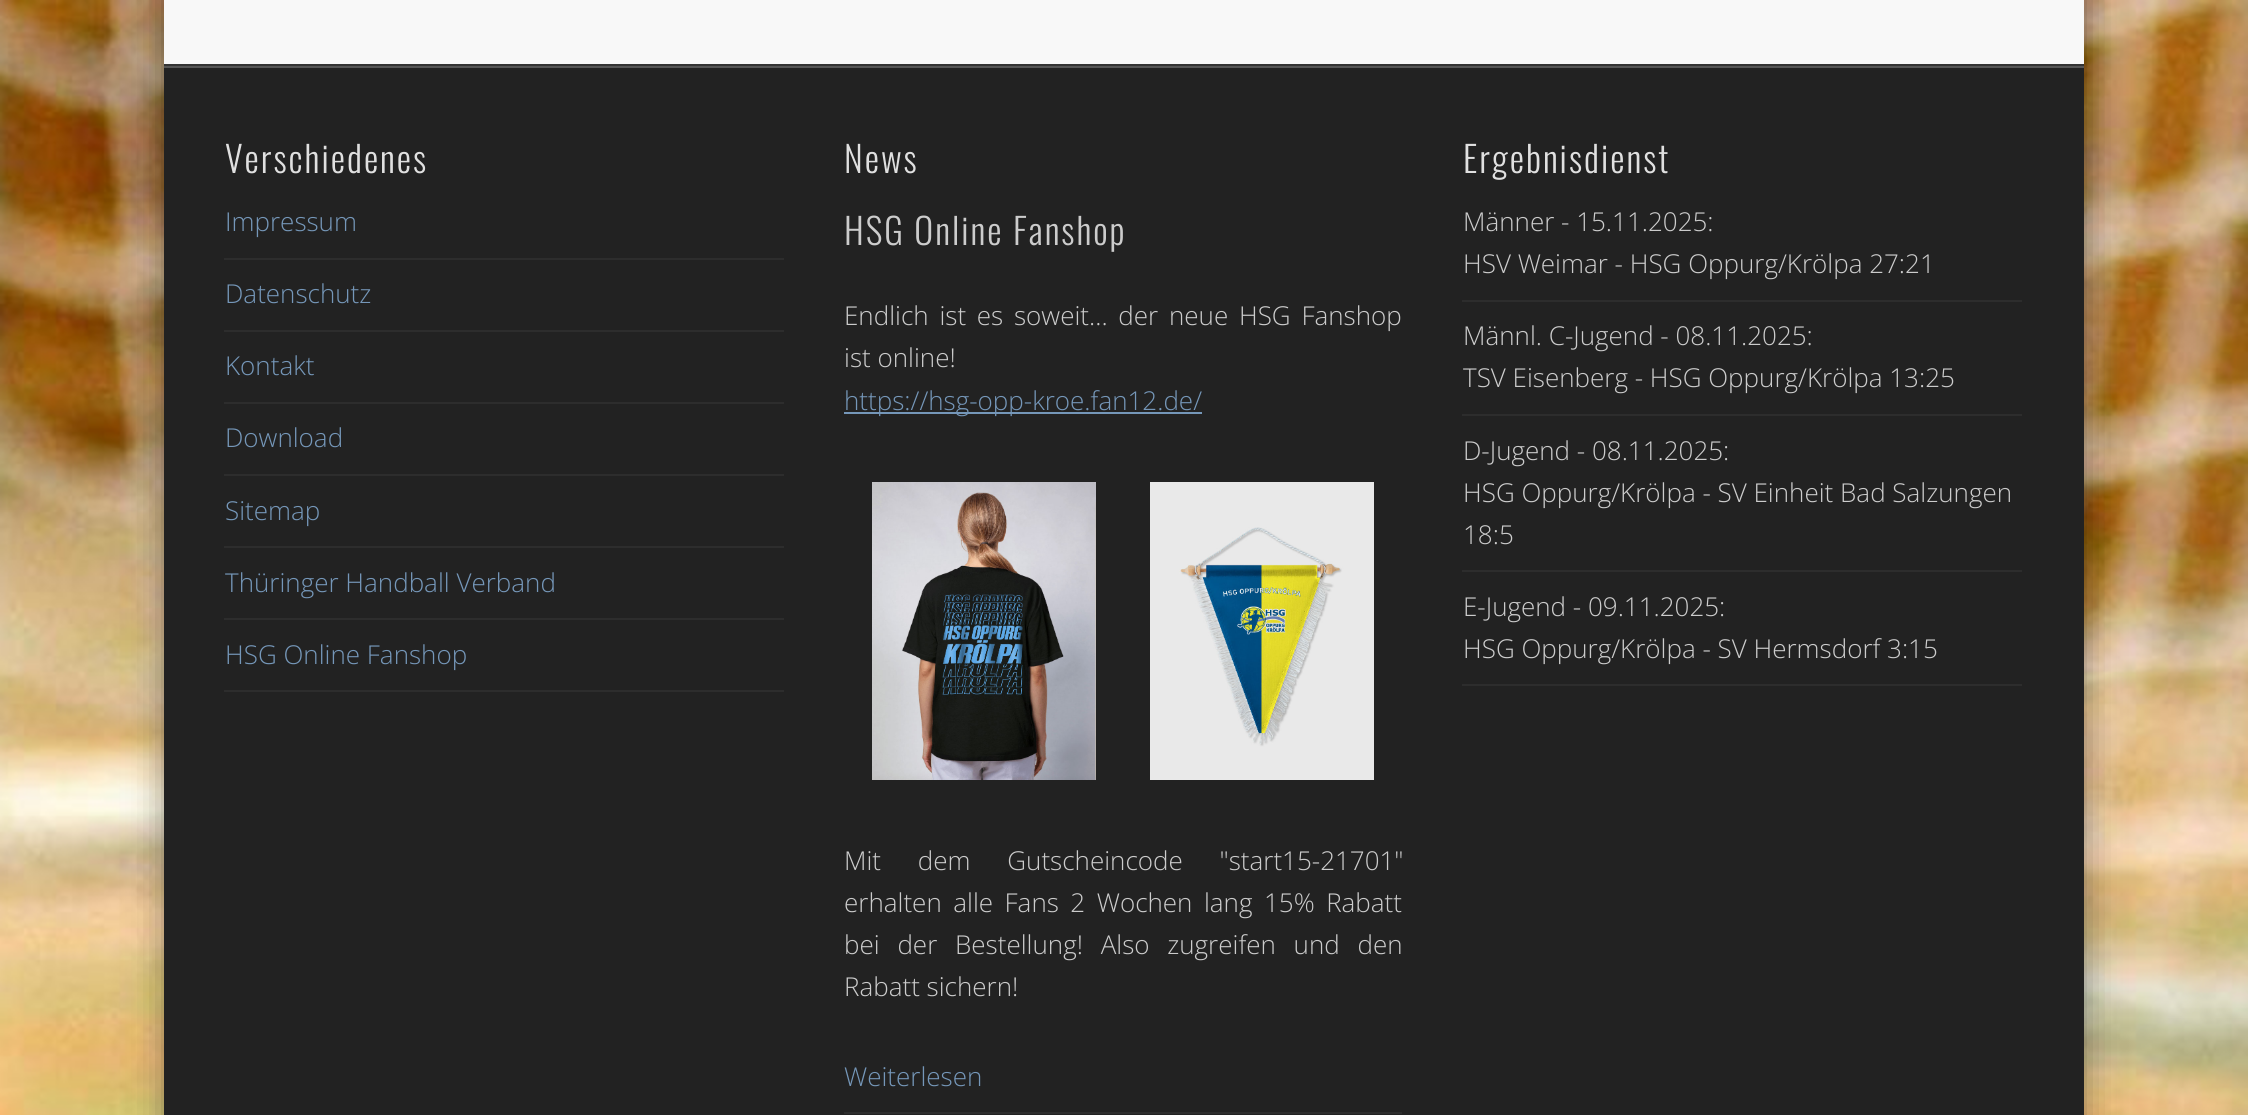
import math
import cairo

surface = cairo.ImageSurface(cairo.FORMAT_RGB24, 2248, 1115)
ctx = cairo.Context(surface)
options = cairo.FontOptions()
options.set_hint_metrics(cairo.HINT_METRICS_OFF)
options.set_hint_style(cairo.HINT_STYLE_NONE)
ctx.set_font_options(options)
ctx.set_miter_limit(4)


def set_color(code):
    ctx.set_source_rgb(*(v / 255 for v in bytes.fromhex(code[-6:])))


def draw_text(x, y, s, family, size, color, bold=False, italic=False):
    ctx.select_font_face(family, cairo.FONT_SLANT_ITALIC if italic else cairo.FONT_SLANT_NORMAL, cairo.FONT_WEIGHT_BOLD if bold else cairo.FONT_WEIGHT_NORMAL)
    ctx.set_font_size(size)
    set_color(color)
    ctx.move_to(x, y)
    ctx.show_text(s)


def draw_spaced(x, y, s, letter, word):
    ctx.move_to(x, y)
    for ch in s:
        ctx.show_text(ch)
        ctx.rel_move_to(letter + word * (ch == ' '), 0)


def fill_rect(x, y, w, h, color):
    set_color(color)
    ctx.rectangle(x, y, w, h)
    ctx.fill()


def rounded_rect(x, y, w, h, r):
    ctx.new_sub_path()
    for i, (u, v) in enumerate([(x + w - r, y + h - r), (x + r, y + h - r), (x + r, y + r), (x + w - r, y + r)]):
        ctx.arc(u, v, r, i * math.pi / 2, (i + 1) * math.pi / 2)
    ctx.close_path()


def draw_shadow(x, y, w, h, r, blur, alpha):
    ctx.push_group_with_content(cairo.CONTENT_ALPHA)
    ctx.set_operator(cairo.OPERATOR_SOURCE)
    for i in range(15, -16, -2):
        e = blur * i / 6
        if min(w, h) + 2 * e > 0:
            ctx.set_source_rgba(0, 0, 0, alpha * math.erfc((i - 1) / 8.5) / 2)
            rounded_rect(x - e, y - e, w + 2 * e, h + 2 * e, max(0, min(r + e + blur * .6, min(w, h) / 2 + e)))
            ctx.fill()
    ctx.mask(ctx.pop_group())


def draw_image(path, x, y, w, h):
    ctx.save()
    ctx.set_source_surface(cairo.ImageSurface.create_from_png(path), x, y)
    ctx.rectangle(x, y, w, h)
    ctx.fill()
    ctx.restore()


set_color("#ffffff")
ctx.paint()
draw_image("assets/img1.png", 0, 0, 2248, 1115)
set_color("#000000")
draw_shadow(164, -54, 1920, 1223, 0, 18, 0.4)
fill_rect(164, 0, 1920, 64, "#f8f8f8")
fill_rect(164, 64, 1920, 2, "#343434")
fill_rect(164, 68, 1920, 1047, "#222222")
fill_rect(164, 66, 1920, 2, "#565656")
ctx.select_font_face("Oswald Light")
ctx.set_font_size(36)
set_color("#e0e0e0")
draw_spaced(225, 173, "Verschiedenes", 2, 0)
fill_rect(224, 258, 560, 2, "#2d2d2d")
draw_text(225, 231, "Impressum", "Open Sans Light", 26, "#7597b9")
fill_rect(224, 330, 560, 2, "#2d2d2d")
draw_text(225, 303, "Datenschutz", "Open Sans Light", 26, "#7597b9")
fill_rect(224, 402, 560, 2, "#2d2d2d")
draw_text(225, 375, "Kontakt", "Open Sans Light", 26, "#7597b9")
fill_rect(224, 474, 560, 2, "#2d2d2d")
draw_text(225, 447, "Download", "Open Sans Light", 26, "#7597b9")
fill_rect(224, 546, 560, 2, "#2d2d2d")
draw_text(225, 520, "Sitemap", "Open Sans Light", 26, "#7597b9")
fill_rect(224, 618, 560, 2, "#2d2d2d")
draw_text(225, 592, "Thüringer Handball Verband", "Open Sans Light", 26, "#7597b9")
fill_rect(224, 690, 560, 2, "#2d2d2d")
draw_text(225, 664, "HSG Online Fanshop", "Open Sans Light", 26, "#7597b9")
ctx.select_font_face("Oswald Light")
ctx.set_font_size(36)
set_color("#e0e0e0")
draw_spaced(844, 173, "News", 2, 0)
fill_rect(844, 1112, 558, 2, "#2d2d2d")
set_color("#cccccc")
draw_spaced(844, 245, "HSG Online Fanshop", 2, 0)
ctx.select_font_face("Open Sans Light")
ctx.set_font_size(26)
draw_spaced(844, 325, "Endlich ist es soweit... der neue HSG Fanshop", 0, 4)
draw_text(844, 367, "ist online!", "Open Sans Light", 26, "#cccccc")
fill_rect(844, 412, 358, 2, "#7597b9")
draw_text(844, 410, "https://hsg-opp-kroe.fan12.de/", "Open Sans Light", 26, "#7597b9")
draw_image("assets/img2.png", 872, 482, 224, 298)
draw_image("assets/img3.png", 1150, 482, 224, 298)
set_color("#cccccc")
draw_spaced(844, 870, "Mit dem Gutscheincode \"start15-21701\"", 0, 30)
draw_spaced(844, 912, "erhalten alle Fans 2 Wochen lang 15% Rabatt", 0, 4.75)
draw_spaced(844, 954, "bei der Bestellung! Also zugreifen und den", 0, 11)
draw_text(844, 996, "Rabatt sichern!", "Open Sans Light", 26, "#cccccc")
draw_text(844, 1086, "Weiterlesen", "Open Sans Light", 26, "#7597b9")
ctx.select_font_face("Oswald Light")
ctx.set_font_size(36)
set_color("#e0e0e0")
draw_spaced(1463, 173, "Ergebnisdienst", 2, 0)
fill_rect(1462, 300, 560, 2, "#2d2d2d")
draw_text(1463, 231, "Männer - 15.11.2025:", "Open Sans Light", 26, "#cccccc")
draw_text(1463, 273, "HSV Weimar - HSG Oppurg/Krölpa 27:21", "Open Sans Light", 26, "#cccccc")
fill_rect(1462, 414, 560, 2, "#2d2d2d")
draw_text(1463, 345, "Männl. C-Jugend - 08.11.2025:", "Open Sans Light", 26, "#cccccc")
draw_text(1463, 387, "TSV Eisenberg - HSG Oppurg/Krölpa 13:25", "Open Sans Light", 26, "#cccccc")
fill_rect(1462, 570, 560, 2, "#2d2d2d")
draw_text(1463, 460, "D-Jugend - 08.11.2025:", "Open Sans Light", 26, "#cccccc")
draw_text(1463, 502, "HSG Oppurg/Krölpa - SV Einheit Bad Salzungen", "Open Sans Light", 26, "#cccccc")
draw_text(1463, 544, "18:5", "Open Sans Light", 26, "#cccccc")
fill_rect(1462, 684, 560, 2, "#2d2d2d")
draw_text(1463, 616, "E-Jugend - 09.11.2025:", "Open Sans Light", 26, "#cccccc")
draw_text(1463, 658, "HSG Oppurg/Krölpa - SV Hermsdorf 3:15", "Open Sans Light", 26, "#cccccc")
surface.write_to_png("output.png")
